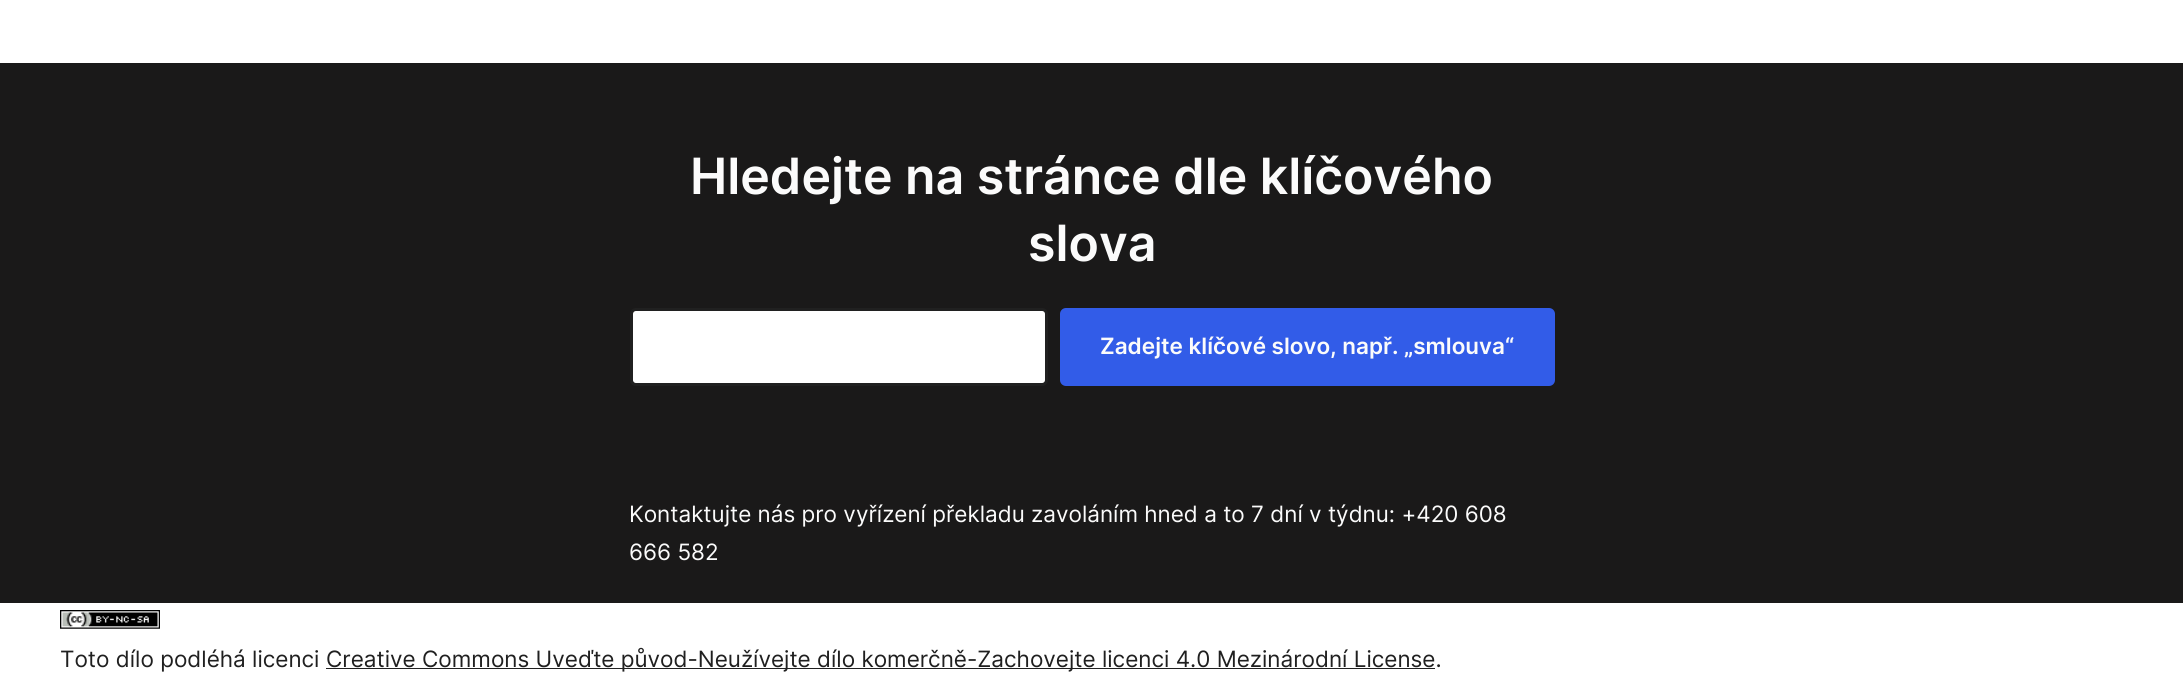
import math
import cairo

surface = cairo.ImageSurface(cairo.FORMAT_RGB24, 2183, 678)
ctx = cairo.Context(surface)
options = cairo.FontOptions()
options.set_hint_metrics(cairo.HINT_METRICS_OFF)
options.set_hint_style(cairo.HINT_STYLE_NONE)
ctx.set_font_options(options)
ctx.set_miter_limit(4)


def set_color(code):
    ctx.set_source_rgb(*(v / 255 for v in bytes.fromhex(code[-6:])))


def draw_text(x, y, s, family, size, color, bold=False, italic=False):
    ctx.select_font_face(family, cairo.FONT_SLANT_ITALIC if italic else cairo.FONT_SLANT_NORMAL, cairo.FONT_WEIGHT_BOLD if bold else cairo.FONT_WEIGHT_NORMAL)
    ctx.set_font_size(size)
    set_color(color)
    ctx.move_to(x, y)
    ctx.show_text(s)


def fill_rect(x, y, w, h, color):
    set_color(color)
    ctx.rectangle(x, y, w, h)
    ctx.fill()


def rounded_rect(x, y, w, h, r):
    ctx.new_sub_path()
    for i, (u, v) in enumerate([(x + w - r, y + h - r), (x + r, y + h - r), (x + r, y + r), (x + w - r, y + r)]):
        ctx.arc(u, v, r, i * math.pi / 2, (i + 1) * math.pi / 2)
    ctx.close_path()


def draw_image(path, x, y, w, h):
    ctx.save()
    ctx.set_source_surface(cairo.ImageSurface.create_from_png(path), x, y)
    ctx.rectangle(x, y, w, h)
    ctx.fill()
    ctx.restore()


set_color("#ffffff")
ctx.paint()
fill_rect(0, 63, 2183, 540, "#1a1919")
draw_text(690, 194, "Hledejte na stránce dle klíčového", "Inter SemiBold", 50, "#fbfbfb")
draw_text(1028, 261, "slova", "Inter SemiBold", 50, "#fbfbfb")
set_color("#ffffff")
rounded_rect(631.5, 309.5, 415, 75, 4.5)
ctx.fill_preserve()
set_color("#202020")
ctx.set_line_width(3)
ctx.stroke()
set_color("#325ce8")
rounded_rect(1060, 308, 495, 78, 6)
ctx.fill()
draw_text(1100, 354, "Zadejte klíčové slovo, např. „smlouva“", "Inter SemiBold", 22.5, "#fbfbfb")
draw_text(629, 522, "Kontaktujte nás pro vyřízení překladu zavoláním hned a to 7 dní v týdnu: +420 608", "Inter", 22.5, "#fbfbfb")
draw_text(629, 560, "666 582", "Inter", 22.5, "#fbfbfb")
draw_image("assets/img1.png", 60, 610, 100, 19)
draw_text(60, 667, "Toto dílo podléhá licenci", "Inter", 22.5, "#202020")
fill_rect(326, 668, 1109, 1, "#202020")
draw_text(326, 667, "Creative Commons Uveďte původ-Neužívejte dílo komerčně-Zachovejte licenci 4.0 Mezinárodní License.", "Inter", 22.5, "#202020")
surface.write_to_png("output.png")
